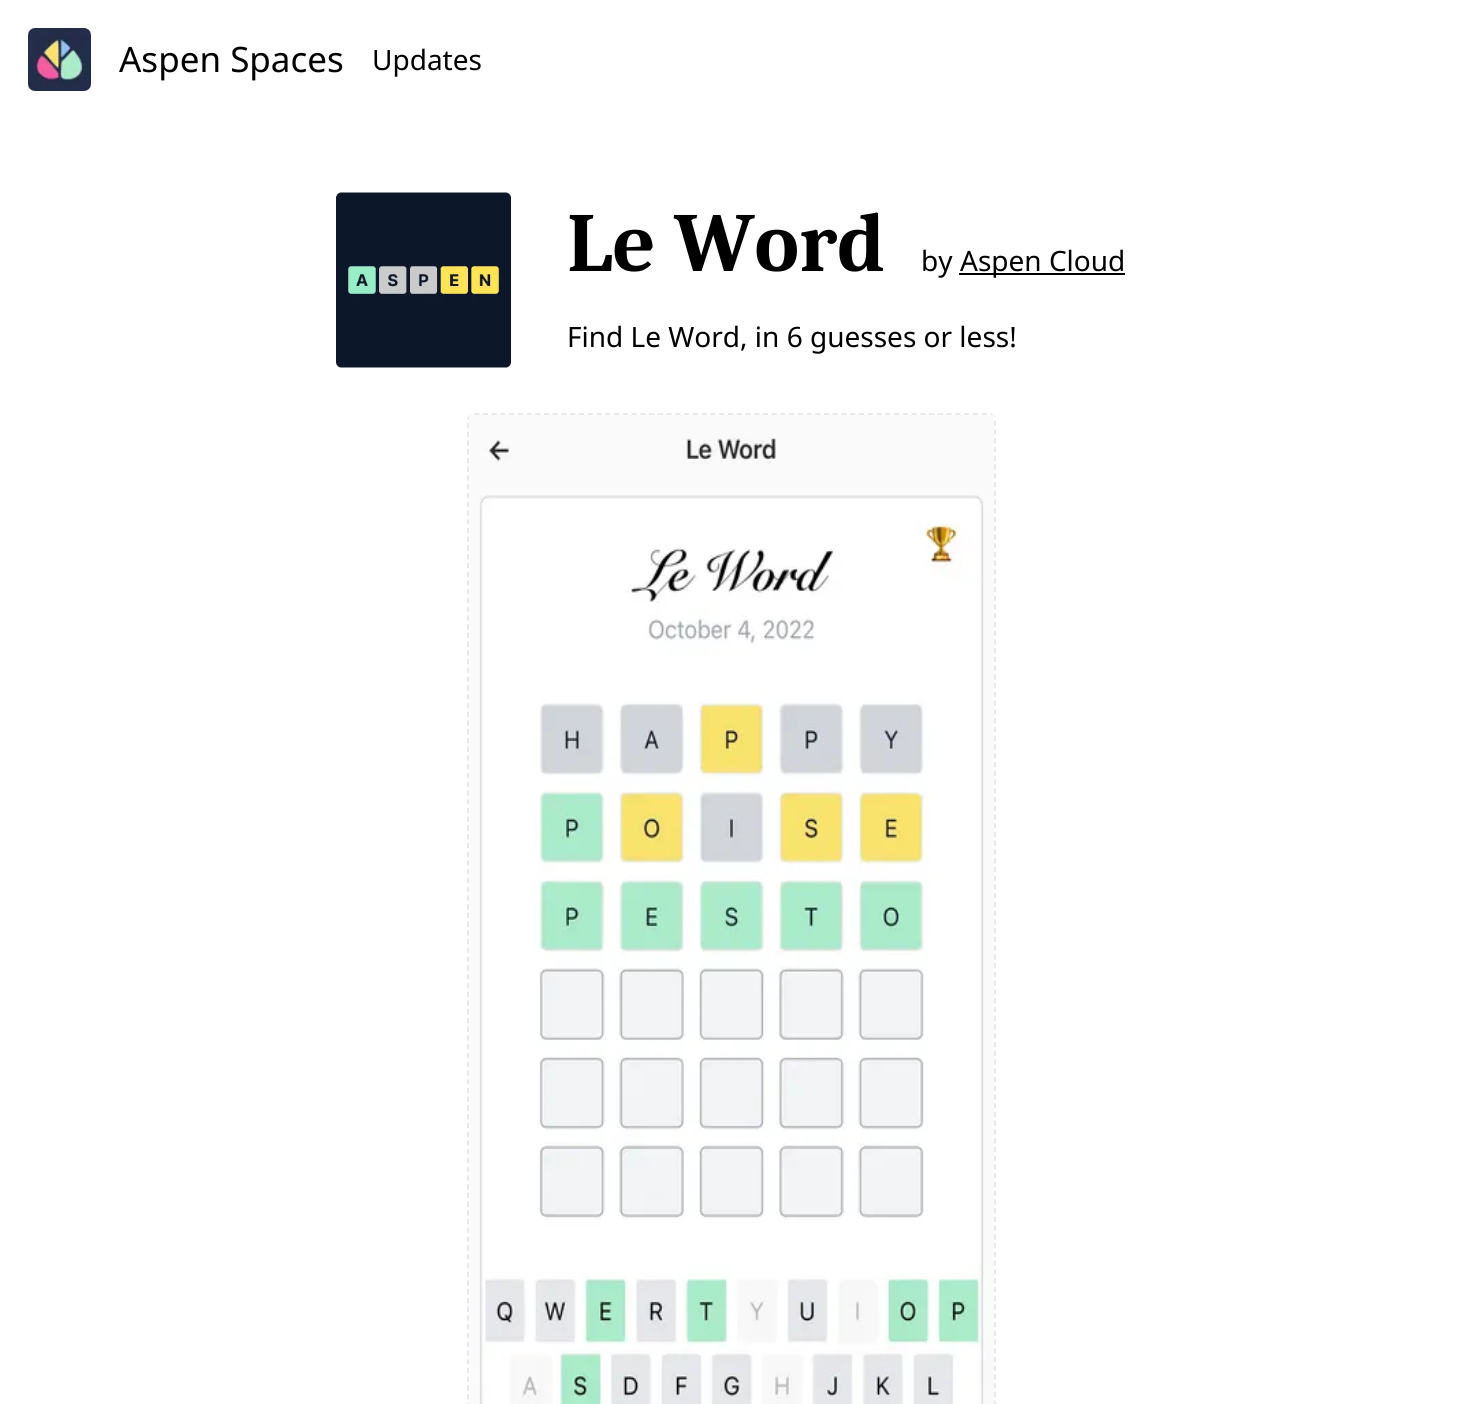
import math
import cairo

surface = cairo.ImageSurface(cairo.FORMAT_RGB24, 1460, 1404)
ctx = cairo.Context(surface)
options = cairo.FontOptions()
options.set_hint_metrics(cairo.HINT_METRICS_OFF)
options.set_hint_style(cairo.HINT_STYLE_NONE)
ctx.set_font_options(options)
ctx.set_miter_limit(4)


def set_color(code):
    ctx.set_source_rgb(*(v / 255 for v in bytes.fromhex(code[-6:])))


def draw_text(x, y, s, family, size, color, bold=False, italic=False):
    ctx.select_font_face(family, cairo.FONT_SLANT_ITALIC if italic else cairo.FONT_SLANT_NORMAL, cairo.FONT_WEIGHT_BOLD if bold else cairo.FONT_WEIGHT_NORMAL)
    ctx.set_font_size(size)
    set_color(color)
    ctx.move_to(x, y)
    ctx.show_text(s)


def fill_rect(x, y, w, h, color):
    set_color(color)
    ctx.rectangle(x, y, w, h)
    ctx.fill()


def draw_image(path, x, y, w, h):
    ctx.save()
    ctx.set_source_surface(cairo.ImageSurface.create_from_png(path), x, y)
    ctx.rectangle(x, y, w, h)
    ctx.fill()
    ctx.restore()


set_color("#ffffff")
ctx.paint()
draw_image("assets/img1.png", 28, 28, 63, 63)
draw_text(119, 72, "Aspen Spaces", "Noto Sans", 35, "#000000")
draw_text(372, 70, "Updates", "Noto Sans", 28, "#000000")
draw_image("assets/img2.png", 336, 192, 175, 176)
draw_text(567, 271, "Le Word", "Caladea", 84, "#000000", bold=True)
draw_text(921, 271, "by", "Noto Sans", 28, "#000000")
fill_rect(959, 273, 166, 2, "#000000")
draw_text(960, 271, "Aspen Cloud", "Noto Sans", 28, "#000000")
draw_text(567, 347, "Find Le Word, in 6 guesses or less!", "Noto Sans", 28, "#000000")
ctx.new_path()
ctx.move_to(474, 414)
ctx.line_to(989, 414)
ctx.curve_to(992, 414, 995, 416.5, 995, 420)
ctx.line_to(995, 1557.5)
ctx.curve_to(995, 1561, 992, 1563.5, 989, 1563.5)
ctx.line_to(474, 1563.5)
ctx.curve_to(471, 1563.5, 468, 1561, 468, 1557.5)
ctx.line_to(468, 420)
ctx.curve_to(468, 416.5, 471, 414, 474, 414)
ctx.close_path()
set_color("#e5e5e5")
ctx.set_line_width(1.8)
ctx.set_dash([5.25, 3.5])
ctx.stroke()
draw_image("assets/img3.png", 469, 415, 525, 989)
surface.write_to_png("output.png")
